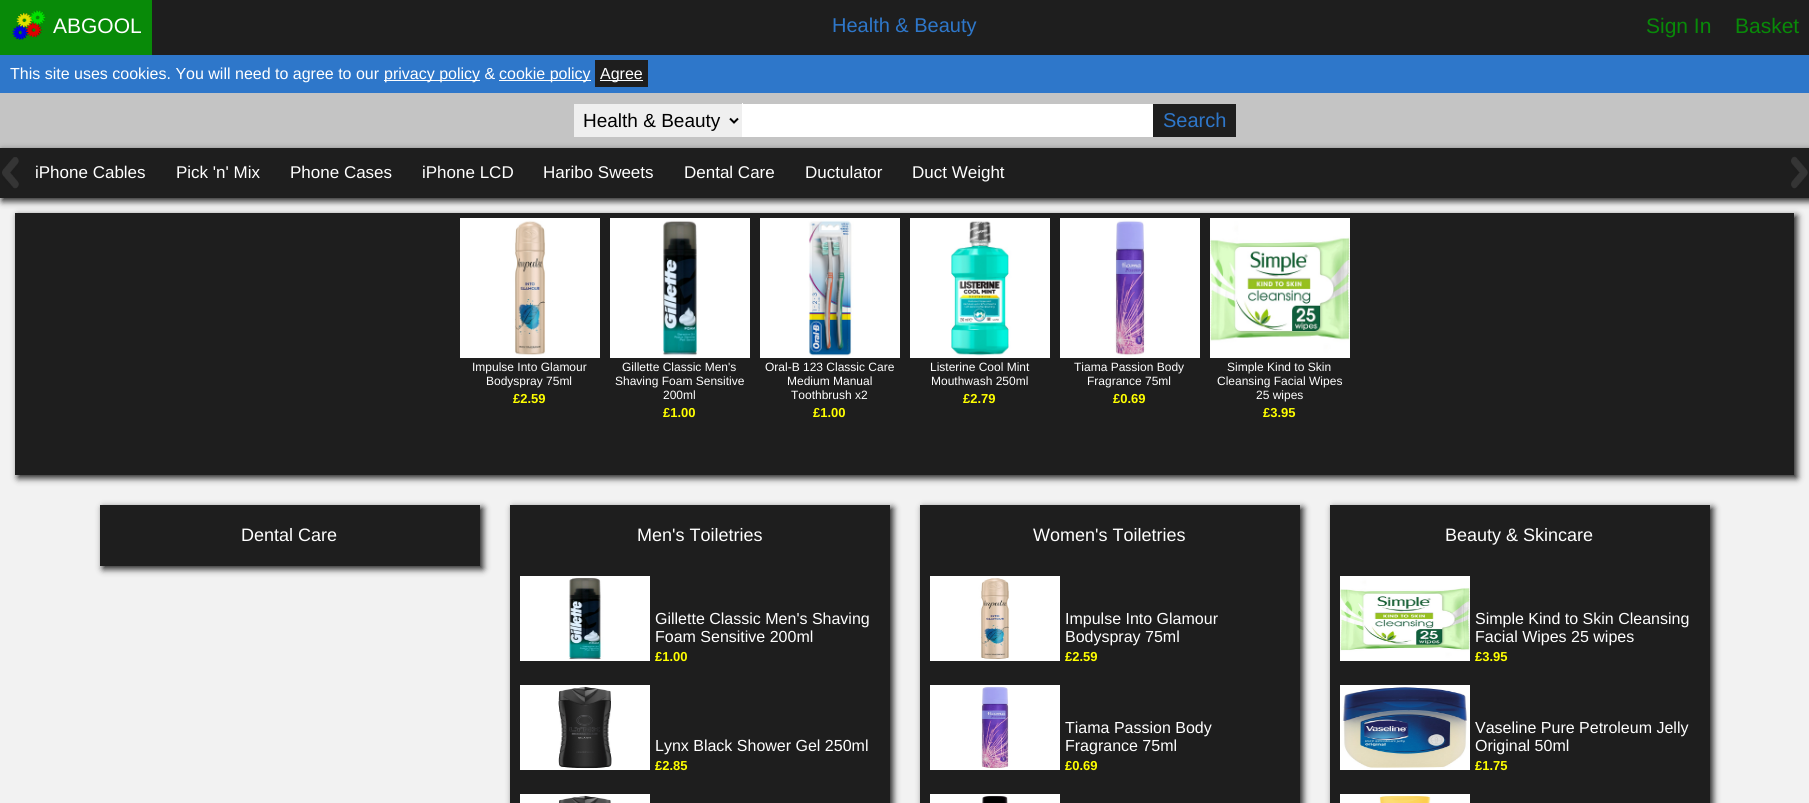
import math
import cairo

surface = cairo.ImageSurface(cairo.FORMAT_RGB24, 1809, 803)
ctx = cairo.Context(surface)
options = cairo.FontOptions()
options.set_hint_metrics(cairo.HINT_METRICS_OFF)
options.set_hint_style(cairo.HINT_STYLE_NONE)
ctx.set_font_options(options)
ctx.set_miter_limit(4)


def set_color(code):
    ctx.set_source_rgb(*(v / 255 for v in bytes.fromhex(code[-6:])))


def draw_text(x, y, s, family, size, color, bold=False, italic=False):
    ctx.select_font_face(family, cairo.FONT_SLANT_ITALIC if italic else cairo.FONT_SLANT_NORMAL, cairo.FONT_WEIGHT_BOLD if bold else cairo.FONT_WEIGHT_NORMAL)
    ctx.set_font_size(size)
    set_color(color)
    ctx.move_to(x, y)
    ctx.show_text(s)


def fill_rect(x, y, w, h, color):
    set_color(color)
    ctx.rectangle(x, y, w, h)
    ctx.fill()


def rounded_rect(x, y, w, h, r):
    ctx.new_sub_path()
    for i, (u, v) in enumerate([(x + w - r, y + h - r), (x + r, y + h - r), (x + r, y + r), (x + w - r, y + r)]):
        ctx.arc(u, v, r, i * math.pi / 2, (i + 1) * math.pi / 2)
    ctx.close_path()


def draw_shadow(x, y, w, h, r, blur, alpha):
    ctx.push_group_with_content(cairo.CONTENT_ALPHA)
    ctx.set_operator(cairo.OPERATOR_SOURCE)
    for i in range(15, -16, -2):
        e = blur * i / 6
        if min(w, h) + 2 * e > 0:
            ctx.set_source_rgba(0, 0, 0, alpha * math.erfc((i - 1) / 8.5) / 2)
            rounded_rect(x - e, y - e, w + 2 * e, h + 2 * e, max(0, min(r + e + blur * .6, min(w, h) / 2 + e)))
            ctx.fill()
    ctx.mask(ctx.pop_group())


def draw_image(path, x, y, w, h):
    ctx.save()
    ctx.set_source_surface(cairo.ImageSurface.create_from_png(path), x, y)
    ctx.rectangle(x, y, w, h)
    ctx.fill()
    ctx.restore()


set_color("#f2f2f2")
ctx.paint()
fill_rect(0, 0, 152, 55, "#088a08")
draw_image("assets/img1.png", 12, 10, 34, 30)
draw_text(53, 33, "ABGOOL", "Liberation Sans", 21, "#ffffff")
fill_rect(152, 0, 1657, 55, "#1e1e1e")
draw_text(832, 32, "Health & Beauty", "Liberation Sans", 20, "#2e77ca")
draw_text(1646, 33, "Sign In", "Liberation Sans", 21, "#088a08")
draw_text(1735, 33, "Basket", "Liberation Sans", 21, "#088a08")
fill_rect(0, 55, 1809, 38, "#2e77ca")
draw_text(10, 79, "This site uses cookies. You will need to agree to our", "Liberation Sans", 16, "#ffffff")
fill_rect(384, 80, 96, 1, "#ffffff")
draw_text(384, 79, "privacy policy &", "Liberation Sans", 16, "#ffffff")
fill_rect(499, 80, 92, 1, "#ffffff")
draw_text(499, 79, "cookie policy", "Liberation Sans", 16, "#ffffff")
fill_rect(595, 60, 53, 27, "#1e1e1e")
fill_rect(600, 80, 43, 1, "#ffffff")
draw_text(600, 79, "Agree", "Liberation Sans", 16, "#ffffff")
fill_rect(0, 93, 1809, 55, "#c4c4c4")
fill_rect(574, 104, 168, 33, "#efefef")
fill_rect(742, 103, 1, 35, "#ffffff")
fill_rect(742, 137, 1, 1, "#c4c4c4")
ctx.new_path()
ctx.move_to(730, 118.5)
ctx.line_to(734, 122.5)
ctx.line_to(738, 118.5)
set_color("#000000")
ctx.stroke()
draw_text(583, 127, "Health & Beauty", "Liberation Sans", 19, "#000000")
fill_rect(743, 104, 410, 33, "#ffffff")
fill_rect(1153, 104, 83, 33, "#1e1e1e")
draw_text(1163, 127, "Search", "Liberation Sans", 20, "#2e77ca")
set_color("#1e1e1e")
draw_shadow(2, 151, 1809, 50, 0, 3.5, 1)
fill_rect(0, 148, 1809, 50, "#1e1e1e")
draw_image("assets/img2.png", 2, 157, 17, 32)
draw_text(35, 178, "iPhone Cables", "Liberation Sans", 17, "#ffffff")
draw_text(176, 178, "Pick 'n' Mix", "Liberation Sans", 17, "#ffffff")
draw_text(290, 178, "Phone Cases", "Liberation Sans", 17, "#ffffff")
draw_text(422, 178, "iPhone LCD", "Liberation Sans", 17, "#ffffff")
draw_text(543, 178, "Haribo Sweets", "Liberation Sans", 17, "#ffffff")
draw_text(684, 178, "Dental Care", "Liberation Sans", 17, "#ffffff")
draw_text(805, 178, "Ductulator", "Liberation Sans", 17, "#ffffff")
draw_text(912, 178, "Duct Weight", "Liberation Sans", 17, "#ffffff")
draw_image("assets/img3.png", 1791, 156, 17, 33)
set_color("#1e1e1e")
draw_shadow(18, 216, 1779, 262, 0, 3.5, 1)
fill_rect(15, 213, 1779, 262, "#1e1e1e")
draw_image("assets/img4.png", 460, 218, 140, 140)
draw_text(472, 371, "Impulse Into Glamour", "Liberation Sans", 12, "#ffffff")
draw_text(486, 385, "Bodyspray 75ml", "Liberation Sans", 12, "#ffffff")
draw_text(513, 403, "£2.59", "Liberation Sans", 13, "#ffff00", bold=True)
draw_image("assets/img5.png", 610, 218, 140, 140)
draw_text(622, 371, "Gillette Classic Men's", "Liberation Sans", 12, "#ffffff")
draw_text(615, 385, "Shaving Foam Sensitive", "Liberation Sans", 12, "#ffffff")
draw_text(663, 399, "200ml", "Liberation Sans", 12, "#ffffff")
draw_text(663, 417, "£1.00", "Liberation Sans", 13, "#ffff00", bold=True)
draw_image("assets/img6.png", 760, 218, 140, 140)
draw_text(765, 371, "Oral-B 123 Classic Care", "Liberation Sans", 12, "#ffffff")
draw_text(787, 385, "Medium Manual", "Liberation Sans", 12, "#ffffff")
draw_text(791, 399, "Toothbrush x2", "Liberation Sans", 12, "#ffffff")
draw_text(813, 417, "£1.00", "Liberation Sans", 13, "#ffff00", bold=True)
draw_image("assets/img7.png", 910, 218, 140, 140)
draw_text(930, 371, "Listerine Cool Mint", "Liberation Sans", 12, "#ffffff")
draw_text(931, 385, "Mouthwash 250ml", "Liberation Sans", 12, "#ffffff")
draw_text(963, 403, "£2.79", "Liberation Sans", 13, "#ffff00", bold=True)
draw_image("assets/img8.png", 1060, 218, 140, 140)
draw_text(1074, 371, "Tiama Passion Body", "Liberation Sans", 12, "#ffffff")
draw_text(1087, 385, "Fragrance 75ml", "Liberation Sans", 12, "#ffffff")
draw_text(1113, 403, "£0.69", "Liberation Sans", 13, "#ffff00", bold=True)
draw_image("assets/img9.png", 1210, 218, 140, 140)
draw_text(1227, 371, "Simple Kind to Skin", "Liberation Sans", 12, "#ffffff")
draw_text(1217, 385, "Cleansing Facial Wipes", "Liberation Sans", 12, "#ffffff")
draw_text(1256, 399, "25 wipes", "Liberation Sans", 12, "#ffffff")
draw_text(1263, 417, "£3.95", "Liberation Sans", 13, "#ffff00", bold=True)
set_color("#1e1e1e")
draw_shadow(103, 508, 380, 61, 0, 3.5, 1)
fill_rect(100, 505, 380, 61, "#1e1e1e")
draw_text(241, 541, "Dental Care", "Liberation Sans", 18, "#ffffff")
set_color("#1e1e1e")
draw_shadow(513, 508, 380, 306, 0, 3.5, 1)
fill_rect(510, 505, 380, 298, "#1e1e1e")
draw_text(637, 541, "Men's Toiletries", "Liberation Sans", 18, "#ffffff")
draw_image("assets/img10.png", 520, 576, 130, 85)
draw_text(655, 624, "Gillette Classic Men's Shaving", "Liberation Sans", 16, "#ffffff")
draw_text(655, 642, "Foam Sensitive 200ml", "Liberation Sans", 16, "#ffffff")
draw_text(655, 661, "£1.00", "Liberation Sans", 13, "#ffff00", bold=True)
draw_image("assets/img11.png", 520, 685, 130, 85)
draw_text(655, 751, "Lynx Black Shower Gel 250ml", "Liberation Sans", 16, "#ffffff")
draw_text(655, 770, "£2.85", "Liberation Sans", 13, "#ffff00", bold=True)
draw_image("assets/img12.png", 520, 794, 130, 9)
set_color("#1e1e1e")
draw_shadow(923, 508, 380, 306, 0, 3.5, 1)
fill_rect(920, 505, 380, 298, "#1e1e1e")
draw_text(1033, 541, "Women's Toiletries", "Liberation Sans", 18, "#ffffff")
draw_image("assets/img13.png", 930, 576, 130, 85)
draw_text(1065, 624, "Impulse Into Glamour", "Liberation Sans", 16, "#ffffff")
draw_text(1065, 642, "Bodyspray 75ml", "Liberation Sans", 16, "#ffffff")
draw_text(1065, 661, "£2.59", "Liberation Sans", 13, "#ffff00", bold=True)
draw_image("assets/img14.png", 930, 685, 130, 85)
draw_text(1065, 733, "Tiama Passion Body", "Liberation Sans", 16, "#ffffff")
draw_text(1065, 751, "Fragrance 75ml", "Liberation Sans", 16, "#ffffff")
draw_text(1065, 770, "£0.69", "Liberation Sans", 13, "#ffff00", bold=True)
draw_image("assets/img15.png", 930, 794, 130, 9)
set_color("#1e1e1e")
draw_shadow(1333, 508, 380, 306, 0, 3.5, 1)
fill_rect(1330, 505, 380, 298, "#1e1e1e")
draw_text(1445, 541, "Beauty & Skincare", "Liberation Sans", 18, "#ffffff")
draw_image("assets/img16.png", 1340, 576, 130, 85)
draw_text(1475, 624, "Simple Kind to Skin Cleansing", "Liberation Sans", 16, "#ffffff")
draw_text(1475, 642, "Facial Wipes 25 wipes", "Liberation Sans", 16, "#ffffff")
draw_text(1475, 661, "£3.95", "Liberation Sans", 13, "#ffff00", bold=True)
draw_image("assets/img17.png", 1340, 685, 130, 85)
draw_text(1475, 733, "Vaseline Pure Petroleum Jelly", "Liberation Sans", 16, "#ffffff")
draw_text(1475, 751, "Original 50ml", "Liberation Sans", 16, "#ffffff")
draw_text(1475, 770, "£1.75", "Liberation Sans", 13, "#ffff00", bold=True)
draw_image("assets/img18.png", 1340, 794, 130, 9)
surface.write_to_png("output.png")
